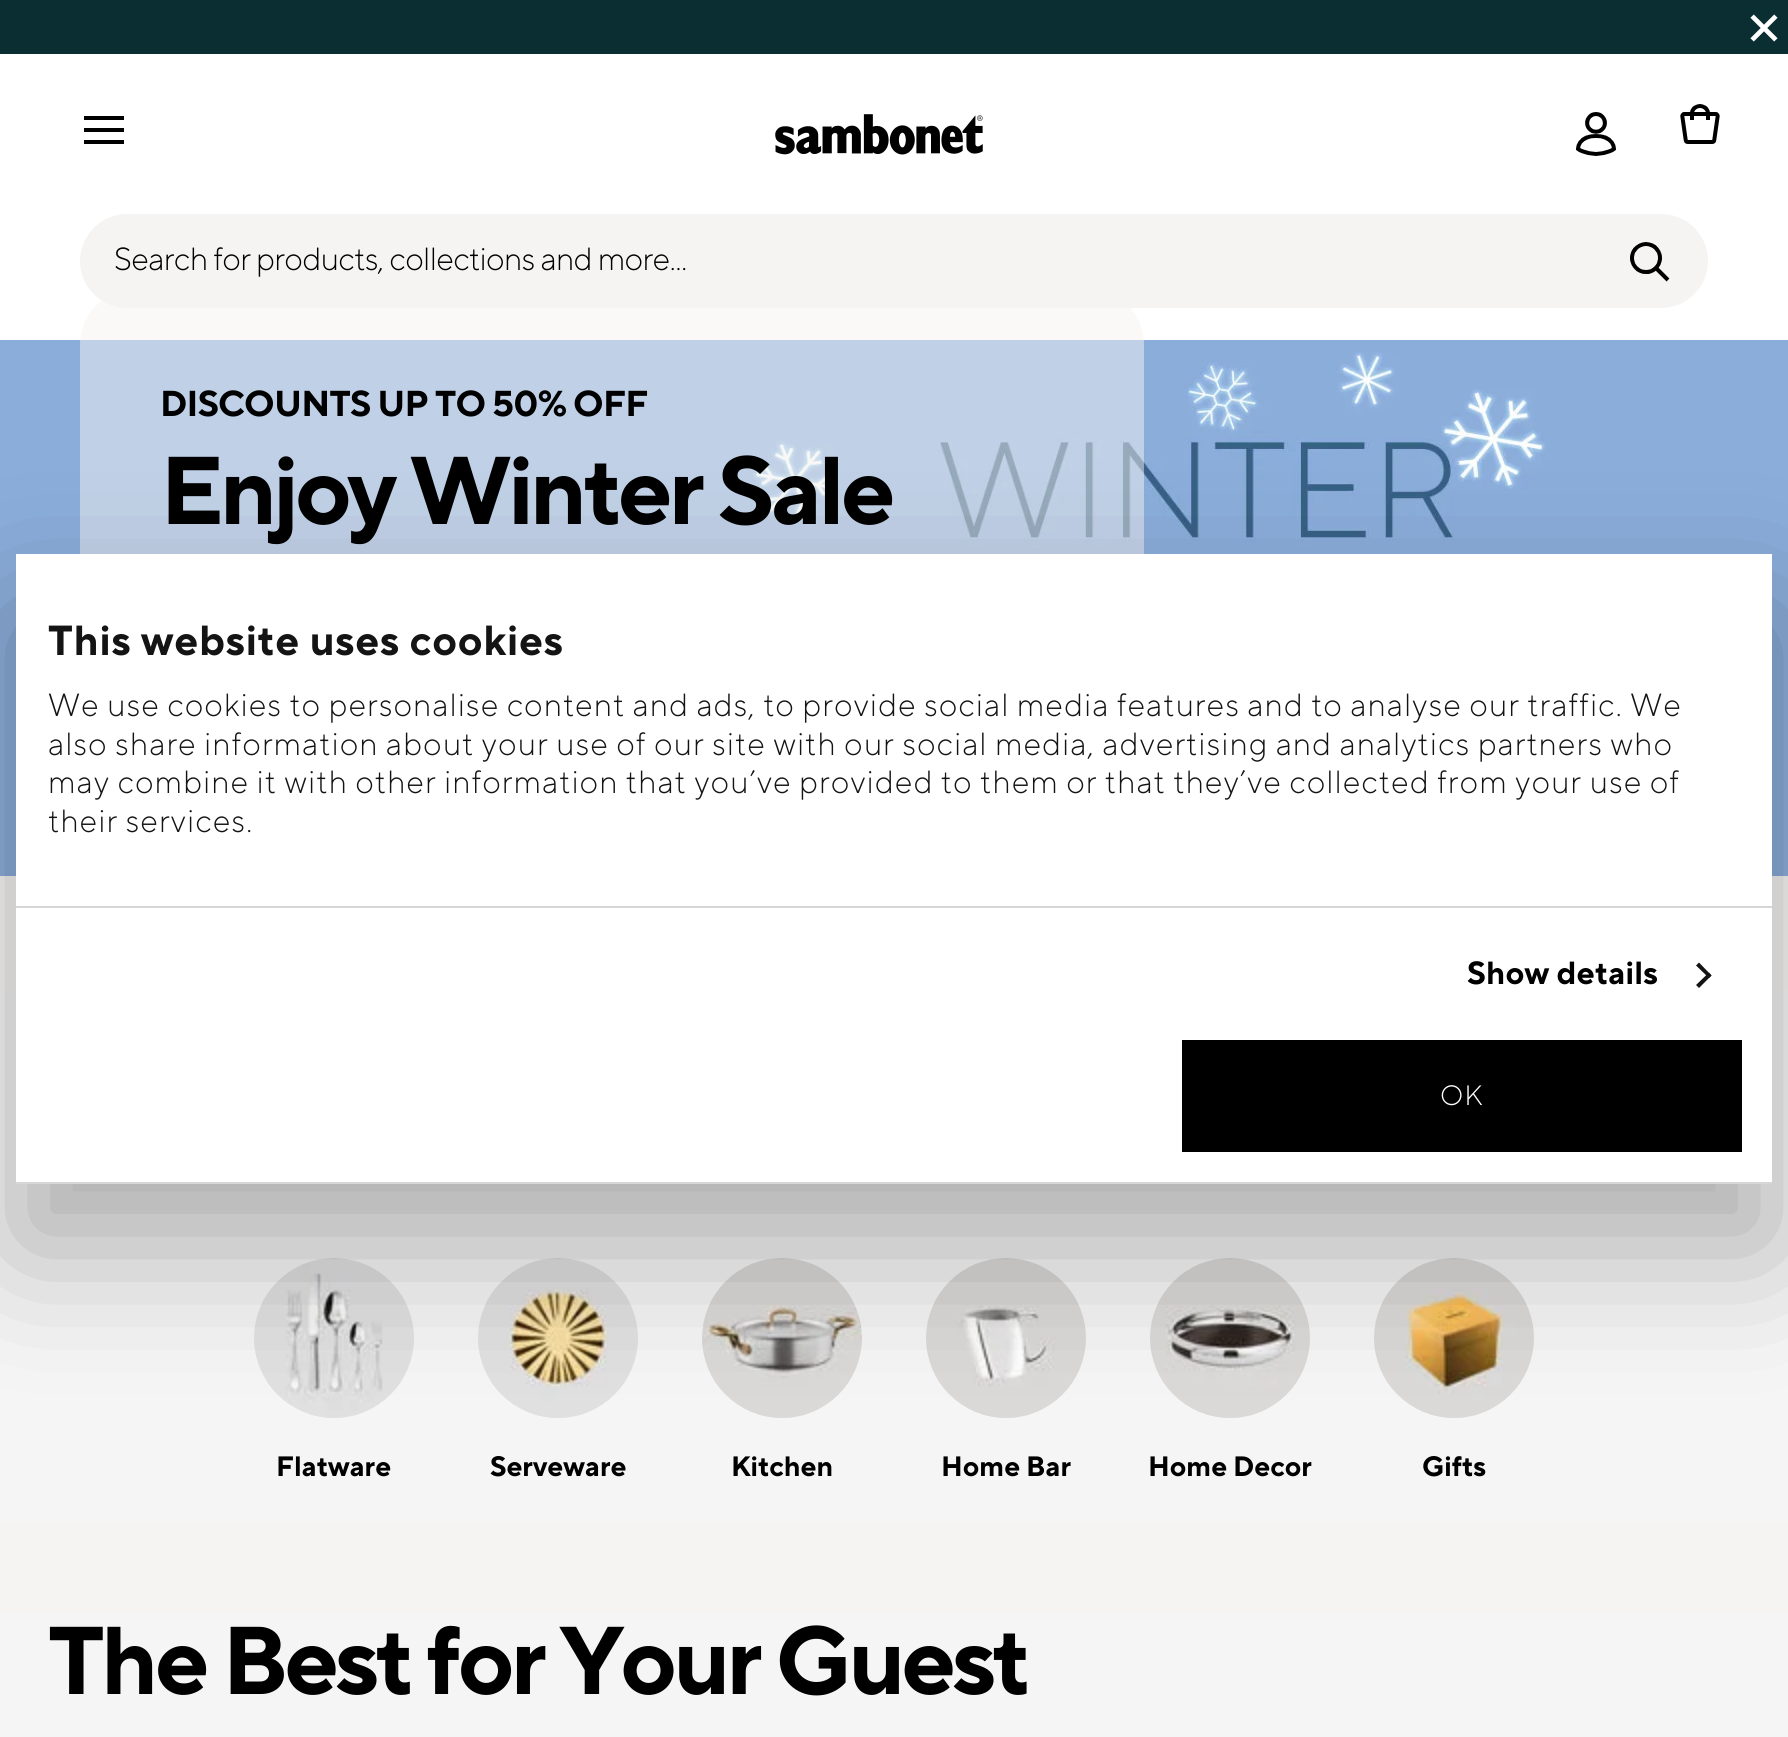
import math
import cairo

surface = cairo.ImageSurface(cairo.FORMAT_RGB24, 1788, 1737)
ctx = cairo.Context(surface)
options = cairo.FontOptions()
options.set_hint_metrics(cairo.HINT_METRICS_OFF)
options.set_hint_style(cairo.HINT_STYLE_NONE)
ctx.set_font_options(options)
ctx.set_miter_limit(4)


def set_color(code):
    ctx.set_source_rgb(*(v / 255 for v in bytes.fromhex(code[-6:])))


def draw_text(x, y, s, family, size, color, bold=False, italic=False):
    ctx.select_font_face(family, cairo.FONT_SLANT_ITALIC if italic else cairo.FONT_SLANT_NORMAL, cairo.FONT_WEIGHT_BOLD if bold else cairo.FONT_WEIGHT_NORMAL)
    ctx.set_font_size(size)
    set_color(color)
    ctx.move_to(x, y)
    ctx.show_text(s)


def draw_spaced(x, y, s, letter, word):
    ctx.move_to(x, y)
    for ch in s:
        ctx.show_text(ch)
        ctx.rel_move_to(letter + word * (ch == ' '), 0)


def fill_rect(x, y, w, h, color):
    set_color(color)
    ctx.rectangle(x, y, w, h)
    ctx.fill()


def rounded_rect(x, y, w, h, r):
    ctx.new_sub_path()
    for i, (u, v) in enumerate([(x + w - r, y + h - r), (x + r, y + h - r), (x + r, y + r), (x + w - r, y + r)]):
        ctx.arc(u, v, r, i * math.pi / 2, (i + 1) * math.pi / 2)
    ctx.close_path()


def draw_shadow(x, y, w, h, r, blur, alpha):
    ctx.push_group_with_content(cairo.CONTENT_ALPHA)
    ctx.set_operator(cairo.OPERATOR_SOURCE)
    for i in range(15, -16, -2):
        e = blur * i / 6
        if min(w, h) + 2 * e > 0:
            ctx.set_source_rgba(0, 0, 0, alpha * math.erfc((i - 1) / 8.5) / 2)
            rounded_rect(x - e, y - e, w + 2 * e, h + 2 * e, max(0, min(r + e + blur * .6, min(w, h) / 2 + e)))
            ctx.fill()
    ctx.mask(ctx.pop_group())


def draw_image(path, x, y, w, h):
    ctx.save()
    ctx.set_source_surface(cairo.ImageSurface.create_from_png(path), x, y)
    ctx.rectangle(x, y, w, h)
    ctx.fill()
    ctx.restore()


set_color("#f6f4f2")
ctx.paint()
fill_rect(0, 0, 1788, 54, "#0b2e33")
draw_image("assets/img1.png", 1750, 14, 28, 28)
fill_rect(0, 54, 1788, 286, "#ffffff")
draw_image("assets/img2.png", 84, 116, 40, 28)
draw_image("assets/img3.png", 775, 114, 208, 41)
draw_image("assets/img4.png", 1576, 112, 40, 44)
draw_image("assets/img5.png", 1680, 104, 40, 40)
set_color("#f6f4f2")
rounded_rect(80, 214, 1628, 94, 47)
ctx.fill()
ctx.select_font_face("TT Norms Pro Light")
ctx.set_font_size(32)
set_color("#000000")
draw_spaced(114, 270, "Search for products, collections and more...", -0.65, 0)
draw_image("assets/img6.png", 1630, 242, 40, 40)
draw_image("assets/img7.png", 0, 340, 1788, 536)
ctx.set_source_rgba(0.965, 0.957, 0.949, 0.5)
ctx.new_path()
ctx.move_to(134, 290)
ctx.line_to(1090, 290)
ctx.curve_to(1120, 290, 1144, 314, 1144, 344)
ctx.line_to(1144, 900)
ctx.line_to(80, 900)
ctx.line_to(80, 344)
ctx.curve_to(80, 314, 104, 290, 134, 290)
ctx.close_path()
ctx.fill()
ctx.select_font_face("TTNormsPro", cairo.FONT_SLANT_NORMAL, cairo.FONT_WEIGHT_BOLD)
ctx.set_font_size(36)
set_color("#000000")
draw_spaced(160, 416, "DISCOUNTS UP TO 50% OFF", -0.75, 0)
ctx.set_font_size(96)
draw_spaced(160, 524, "Enjoy Winter Sale", -3.8, 0)
fill_rect(0, 990, 1788, 532, "#f5f5f5")
draw_image("assets/img8.png", 254, 1258, 160, 160)
draw_text(276, 1476, "Flatware", "TTNormsPro", 28, "#000000", bold=True)
draw_image("assets/img9.png", 478, 1258, 160, 160)
draw_text(490, 1476, "Serveware", "TTNormsPro", 28, "#000000", bold=True)
draw_image("assets/img10.png", 702, 1258, 160, 160)
draw_text(731, 1476, "Kitchen", "TTNormsPro", 28, "#000000", bold=True)
draw_image("assets/img11.png", 926, 1258, 160, 160)
draw_text(941, 1476, "Home Bar", "TTNormsPro", 28, "#000000", bold=True)
draw_image("assets/img12.png", 1150, 1258, 160, 160)
draw_text(1148, 1476, "Home Decor", "TTNormsPro", 28, "#000000", bold=True)
draw_image("assets/img13.png", 1374, 1258, 160, 160)
draw_text(1422, 1476, "Gifts", "TTNormsPro", 28, "#000000", bold=True)
fill_rect(0, 1612, 1788, 125, "#f5f5f5")
ctx.set_font_size(96)
set_color("#000000")
draw_spaced(48, 1694, "The Best for Your Guest", -3.8, 0)
set_color("#000000")
draw_shadow(16, 618, 1756, 630, 0, 68, 0.3)
fill_rect(16, 554, 1756, 628, "#ffffff")
fill_rect(16, 906, 1756, 2, "#d6d6d6")
ctx.set_font_size(42)
set_color("#141414")
draw_spaced(48, 655, "This website uses cookies", 0.8, 0)
ctx.select_font_face("TT Norms Pro Light")
ctx.set_font_size(32)
draw_spaced(48, 716, "We use cookies to personalise content and ads, to provide social media features and to analyse our traffic. We", 1, 0)
draw_spaced(48, 755, "also share information about your use of our site with our social media, advertising and analytics partners who", 1, 0)
draw_spaced(48, 793, "may combine it with other information that you’ve provided to them or that they’ve collected from your use of", 1, 0)
draw_spaced(48, 832, "their services.", 1, 0)
ctx.select_font_face("TTNormsPro", cairo.FONT_SLANT_NORMAL, cairo.FONT_WEIGHT_BOLD)
set_color("#000000")
draw_spaced(1467, 984, "Show details", 0.25, 0)
set_color("#141414")
ctx.new_path()
ctx.move_to(1699, 962.5)
ctx.line_to(1711.5, 975.5)
ctx.line_to(1709, 978)
ctx.line_to(1696, 965.5)
ctx.close_path()
ctx.fill()
ctx.new_path()
ctx.move_to(1709, 972.5)
ctx.line_to(1711.5, 975.5)
ctx.line_to(1699, 988)
ctx.line_to(1696, 985)
ctx.close_path()
ctx.fill()
fill_rect(16, 1182, 1756, 2, "#d6d6d6")
fill_rect(1182, 1040, 560, 112, "#000000")
ctx.select_font_face("TT Norms Pro Light")
ctx.set_font_size(28)
set_color("#ffffff")
draw_spaced(1440, 1105, "OK", 1, 0)
surface.write_to_png("output.png")
